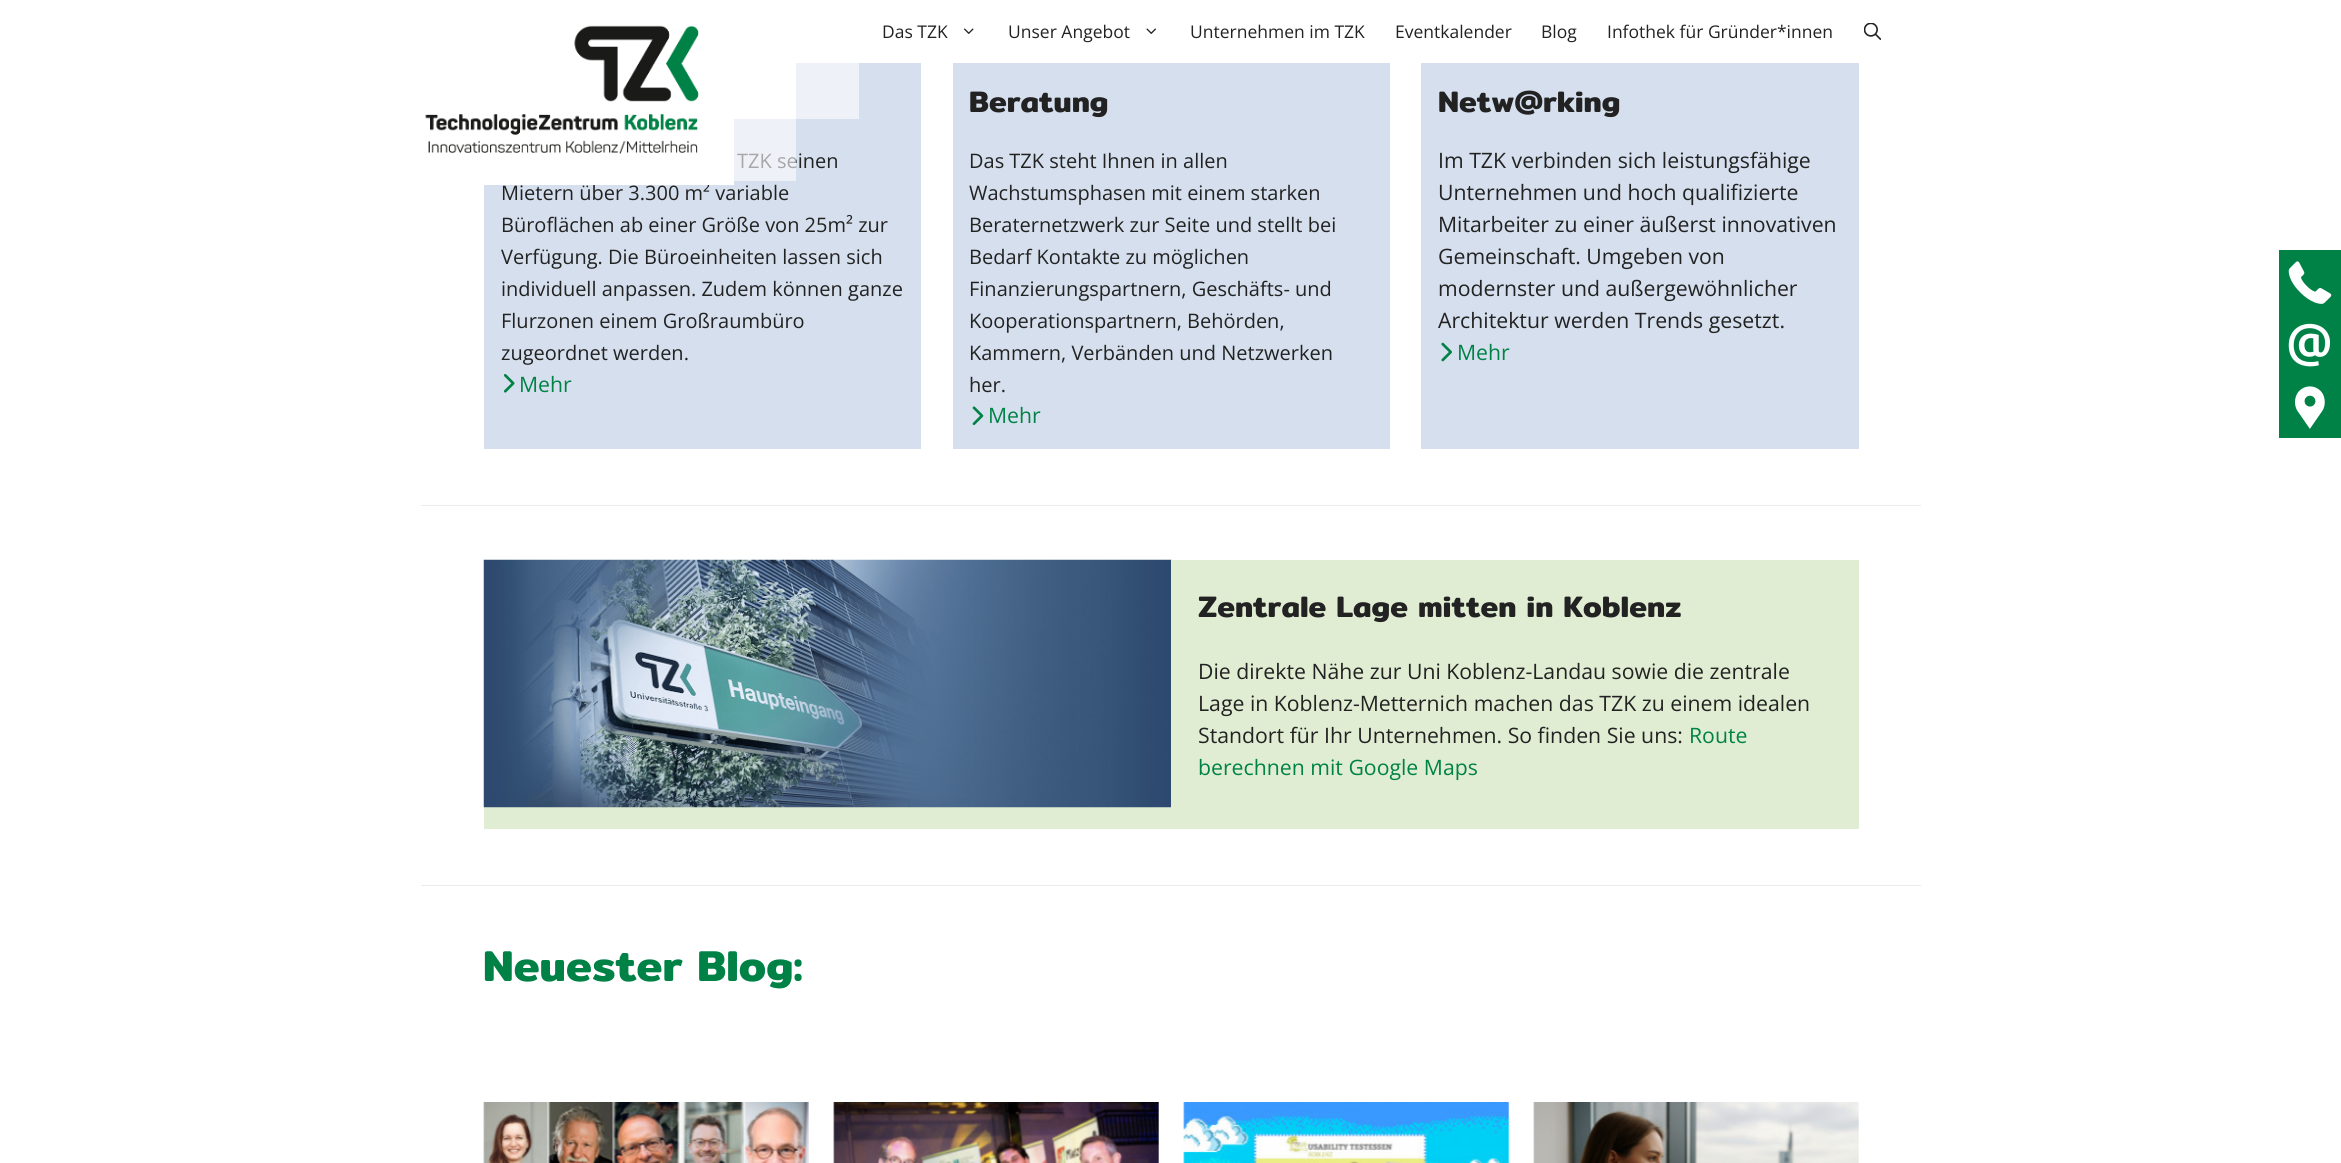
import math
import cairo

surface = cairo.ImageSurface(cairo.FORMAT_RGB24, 2341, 1163)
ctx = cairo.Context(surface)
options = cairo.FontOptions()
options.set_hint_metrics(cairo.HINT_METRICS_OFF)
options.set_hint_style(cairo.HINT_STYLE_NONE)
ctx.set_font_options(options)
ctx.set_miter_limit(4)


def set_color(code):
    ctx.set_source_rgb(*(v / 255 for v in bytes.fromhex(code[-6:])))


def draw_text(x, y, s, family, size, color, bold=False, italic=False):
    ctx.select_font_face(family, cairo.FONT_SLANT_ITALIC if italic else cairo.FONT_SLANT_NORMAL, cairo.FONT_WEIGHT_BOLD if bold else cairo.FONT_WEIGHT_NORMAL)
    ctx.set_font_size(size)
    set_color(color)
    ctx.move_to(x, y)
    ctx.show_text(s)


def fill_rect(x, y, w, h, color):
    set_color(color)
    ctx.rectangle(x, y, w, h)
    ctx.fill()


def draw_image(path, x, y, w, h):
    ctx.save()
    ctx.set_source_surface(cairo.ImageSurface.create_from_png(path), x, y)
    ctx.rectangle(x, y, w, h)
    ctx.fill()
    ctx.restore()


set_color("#ffffff")
ctx.paint()
fill_rect(484, 63, 437, 386, "#d5dfed")
draw_text(501, 200, "Mietern über 3.300 m² variable", "Open Sans", 20, "#222222")
fill_rect(484, 63, 250, 122, "#ffffff")
draw_image("assets/img1.png", 425, 25, 274, 129)
fill_rect(734, 63, 62, 56, "#ffffff")
ctx.set_source_rgba(1, 1, 1, 0.6)
ctx.rectangle(796, 63, 63, 56)
ctx.fill()
draw_text(737, 168, "TZK seinen", "Open Sans", 20, "#222222")
ctx.set_source_rgba(1, 1, 1, 0.6)
ctx.rectangle(734, 119, 62, 62)
ctx.fill()
draw_text(882, 38, "Das TZK", "Open Sans", 17.5, "#222222")
draw_image("assets/img2.png", 963, 28, 11, 6)
draw_text(1008, 38, "Unser Angebot", "Open Sans", 17.5, "#222222")
draw_image("assets/img3.png", 1146, 28, 10, 6)
draw_text(1190, 38, "Unternehmen im TZK", "Open Sans", 17.5, "#222222")
draw_text(1395, 38, "Eventkalender", "Open Sans", 17.5, "#222222")
draw_text(1541, 38, "Blog", "Open Sans", 17.5, "#222222")
draw_text(1607, 38, "Infothek für Gründer*innen", "Open Sans", 17.5, "#222222")
draw_image("assets/img4.png", 1864, 23, 17, 17)
draw_text(501, 232, "Büroflächen ab einer Größe von 25m² zur", "Open Sans", 20, "#222222")
draw_text(501, 264, "Verfügung. Die Büroeinheiten lassen sich", "Open Sans", 20, "#222222")
draw_text(501, 296, "individuell anpassen. Zudem können ganze", "Open Sans", 20, "#222222")
draw_text(501, 328, "Flurzonen einem Großraumbüro", "Open Sans", 20, "#222222")
draw_text(501, 360, "zugeordnet werden.", "Open Sans", 20, "#222222")
draw_image("assets/img5.png", 503, 374, 12, 19)
draw_text(519, 392, "Mehr", "Open Sans", 21.25, "#008246")
fill_rect(953, 63, 437, 386, "#d5dfed")
draw_text(969, 112, "Beratung", "Mitr SemiBold", 30, "#222222")
draw_text(969, 168, "Das TZK steht Ihnen in allen", "Open Sans", 20, "#222222")
draw_text(969, 200, "Wachstumsphasen mit einem starken", "Open Sans", 20, "#222222")
draw_text(969, 232, "Beraternetzwerk zur Seite und stellt bei", "Open Sans", 20, "#222222")
draw_text(969, 264, "Bedarf Kontakte zu möglichen", "Open Sans", 20, "#222222")
draw_text(969, 296, "Finanzierungspartnern, Geschäfts- und", "Open Sans", 20, "#222222")
draw_text(969, 328, "Kooperationspartnern, Behörden,", "Open Sans", 20, "#222222")
draw_text(969, 360, "Kammern, Verbänden und Netzwerken", "Open Sans", 20, "#222222")
draw_text(969, 392, "her.", "Open Sans", 20, "#222222")
draw_image("assets/img6.png", 972, 406, 12, 19)
draw_text(988, 423, "Mehr", "Open Sans", 21.25, "#008246")
fill_rect(1421, 63, 438, 386, "#d5dfed")
draw_text(1438, 112, "Netw@rking", "Mitr SemiBold", 30, "#222222")
draw_text(1438, 168, "Im TZK verbinden sich leistungsfähige", "Open Sans", 21.25, "#222222")
draw_text(1438, 200, "Unternehmen und hoch qualifizierte", "Open Sans", 21.25, "#222222")
draw_text(1438, 232, "Mitarbeiter zu einer äußerst innovativen", "Open Sans", 21.25, "#222222")
draw_text(1438, 264, "Gemeinschaft. Umgeben von", "Open Sans", 21.25, "#222222")
draw_text(1438, 296, "modernster und außergewöhnlicher", "Open Sans", 21.25, "#222222")
draw_text(1438, 328, "Architektur werden Trends gesetzt.", "Open Sans", 21.25, "#222222")
draw_image("assets/img7.png", 1441, 342, 11, 20)
draw_text(1457, 360, "Mehr", "Open Sans", 21.25, "#008246")
fill_rect(421, 505, 1500, 1, "#ebebeb")
fill_rect(484, 807, 687, 22, "#e0edd3")
draw_image("assets/img8.png", 483, 559, 689, 249)
fill_rect(1171, 560, 688, 269, "#e0edd3")
draw_text(1198, 617, "Zentrale Lage mitten in Koblenz", "Mitr SemiBold", 30, "#222222")
draw_text(1198, 679, "Die direkte Nähe zur Uni Koblenz-Landau sowie die zentrale", "Open Sans", 21.25, "#222222")
draw_text(1198, 711, "Lage in Koblenz-Metternich machen das TZK zu einem idealen", "Open Sans", 21.25, "#222222")
draw_text(1198, 743, "Standort für Ihr Unternehmen. So finden Sie uns:", "Open Sans", 21.25, "#222222")
draw_text(1689, 743, "Route", "Open Sans", 21.25, "#008246")
draw_text(1198, 775, "berechnen mit Google Maps", "Open Sans", 21.25, "#008246")
fill_rect(421, 885, 1500, 1, "#ebebeb")
draw_text(483, 981, "Neuester Blog:", "Mitr SemiBold", 43.75, "#008246")
draw_image("assets/img9.png", 483, 1102, 326, 61)
draw_image("assets/img10.png", 833, 1102, 326, 61)
draw_image("assets/img11.png", 1183, 1102, 326, 61)
draw_image("assets/img12.png", 1533, 1102, 326, 61)
fill_rect(2279, 250, 62, 188, "#008246")
draw_image("assets/img13.png", 2288, 261, 44, 43)
draw_image("assets/img14.png", 2288, 323, 42, 44)
draw_image("assets/img15.png", 2295, 386, 30, 43)
surface.write_to_png("output.png")
